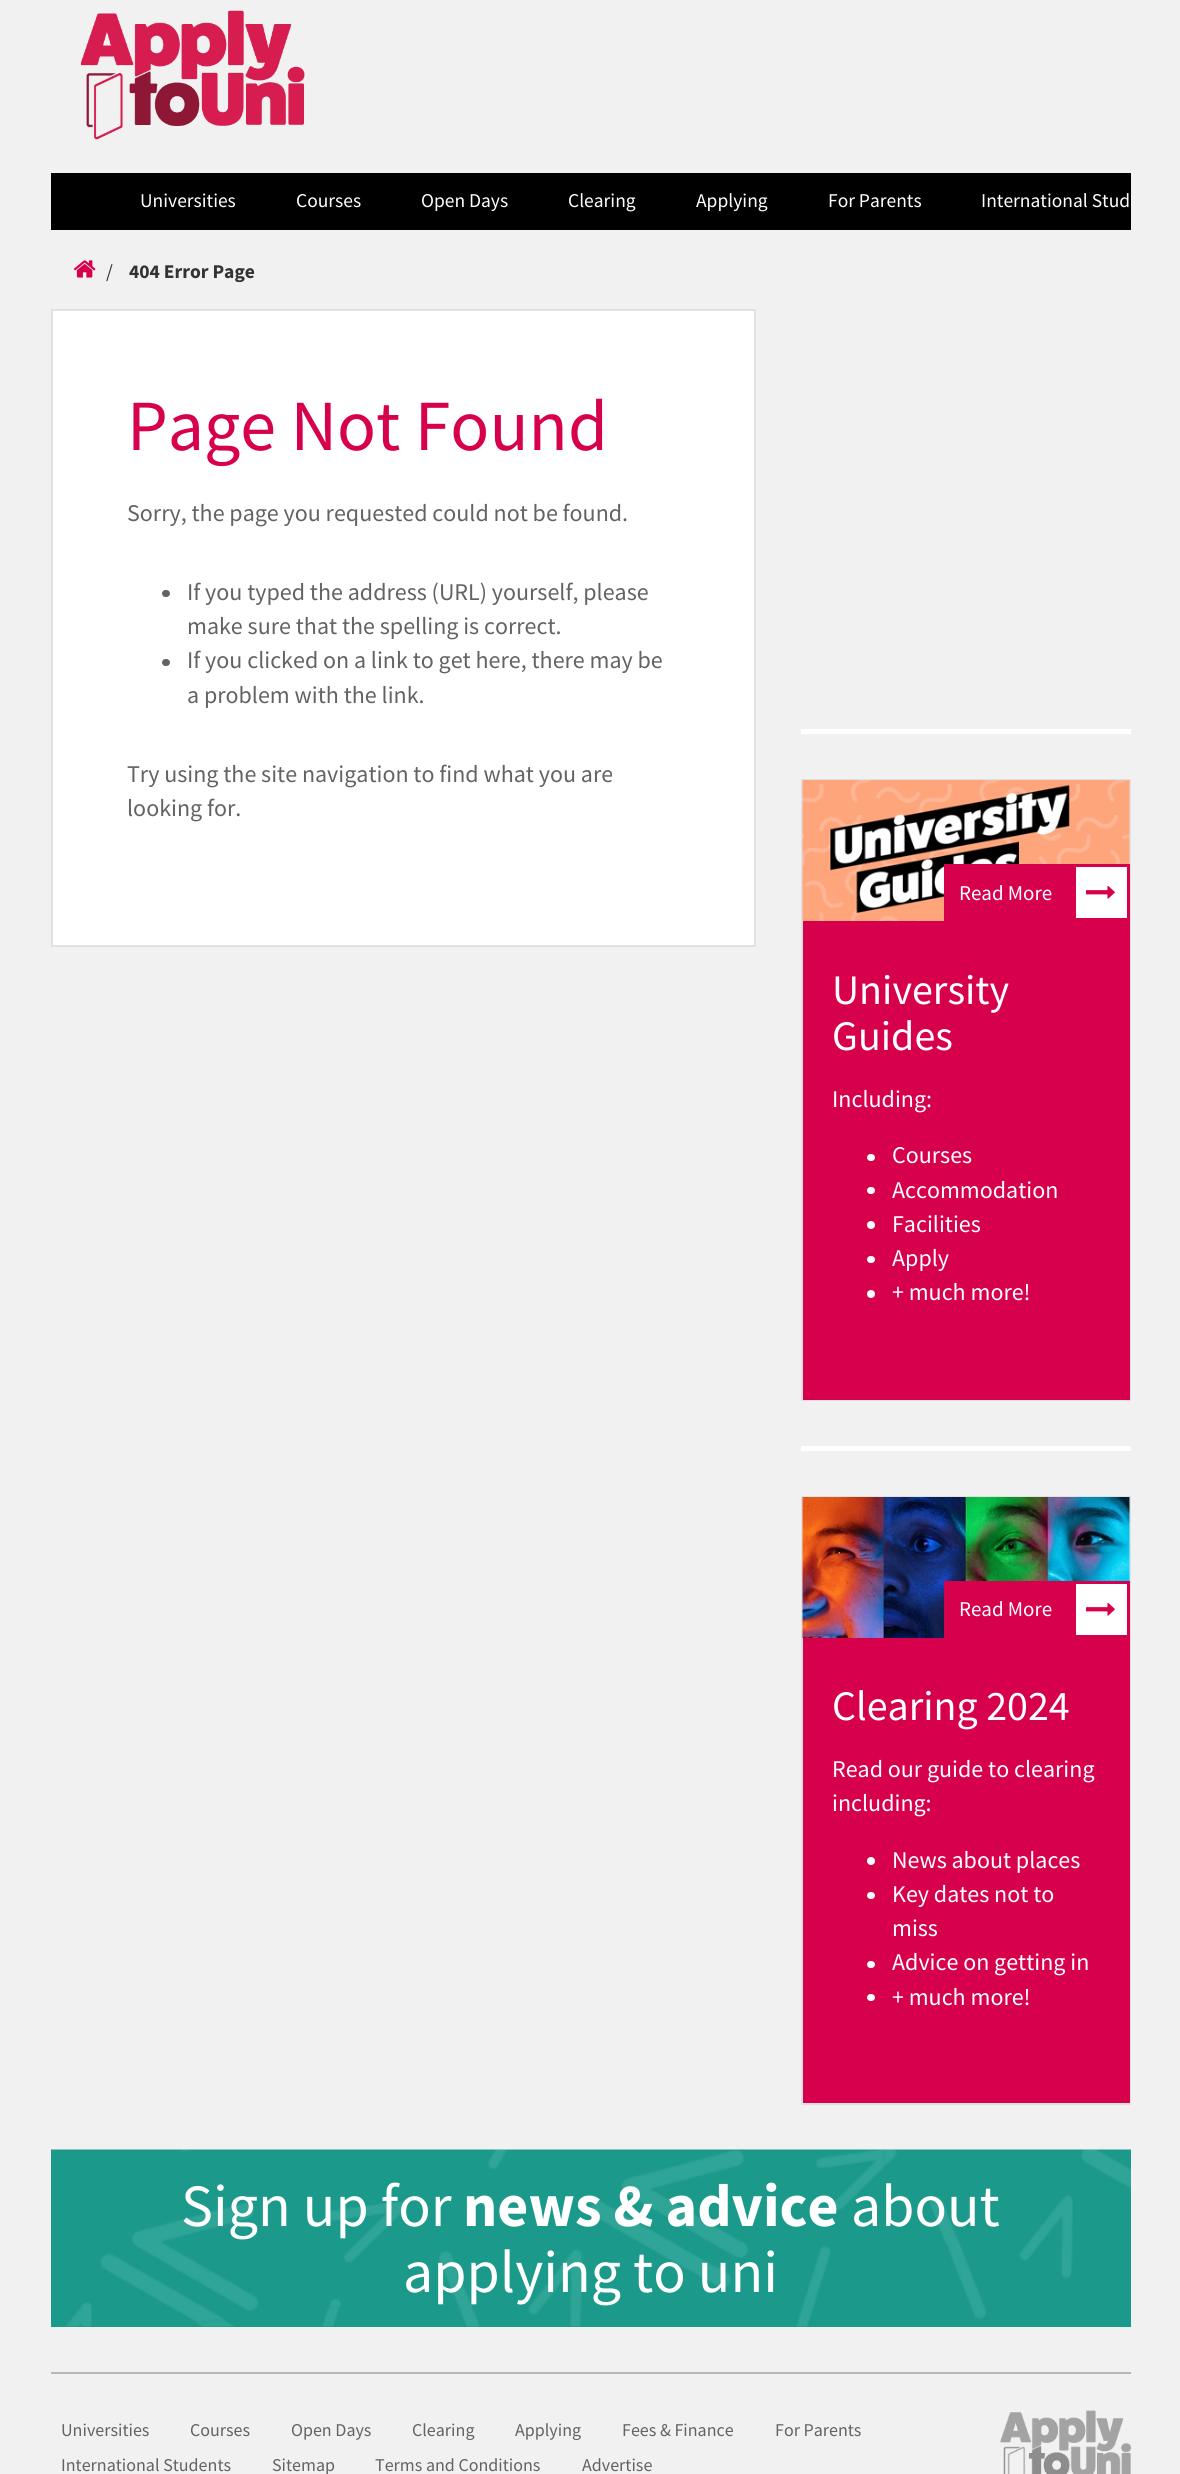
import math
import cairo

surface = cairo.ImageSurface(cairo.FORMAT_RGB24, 1180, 2474)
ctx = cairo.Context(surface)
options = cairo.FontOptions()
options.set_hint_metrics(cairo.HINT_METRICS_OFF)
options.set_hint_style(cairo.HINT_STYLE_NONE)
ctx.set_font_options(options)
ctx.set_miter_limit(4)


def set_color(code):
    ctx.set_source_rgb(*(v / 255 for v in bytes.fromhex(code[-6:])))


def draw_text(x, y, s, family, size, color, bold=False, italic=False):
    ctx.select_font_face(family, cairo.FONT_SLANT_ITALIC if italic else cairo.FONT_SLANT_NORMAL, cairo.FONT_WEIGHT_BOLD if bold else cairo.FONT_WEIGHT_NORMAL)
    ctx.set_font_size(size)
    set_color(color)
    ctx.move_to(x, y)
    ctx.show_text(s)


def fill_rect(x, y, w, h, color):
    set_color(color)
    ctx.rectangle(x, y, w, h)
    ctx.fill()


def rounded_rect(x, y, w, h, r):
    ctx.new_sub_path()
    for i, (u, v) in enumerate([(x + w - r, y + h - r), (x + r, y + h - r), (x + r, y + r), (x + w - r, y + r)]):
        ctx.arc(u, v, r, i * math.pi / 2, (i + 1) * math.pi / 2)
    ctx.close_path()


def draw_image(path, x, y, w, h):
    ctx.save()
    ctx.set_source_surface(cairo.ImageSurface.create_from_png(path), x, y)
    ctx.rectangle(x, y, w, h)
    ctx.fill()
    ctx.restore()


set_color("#f1f1f1")
ctx.paint()
draw_image("assets/img1.png", 81, 10, 224, 130)
fill_rect(51, 173, 1080, 57, "#000000")
draw_text(140, 207, "Universities", "Source Sans Pro", 19.5, "#ffffff")
draw_text(296, 207, "Courses", "Source Sans Pro", 19.5, "#ffffff")
draw_text(421, 207, "Open Days", "Source Sans Pro", 19.5, "#ffffff")
draw_text(568, 207, "Clearing", "Source Sans Pro", 19.5, "#ffffff")
draw_text(696, 207, "Applying", "Source Sans Pro", 19.5, "#ffffff")
draw_text(828, 207, "For Parents", "Source Sans Pro", 19.5, "#ffffff")
draw_text(981, 207, "International Stud", "Source Sans Pro", 19.5, "#ffffff")
draw_image("assets/img2.png", 73, 260, 23, 18)
draw_text(106, 278, "/", "Source Sans Pro", 19.5, "#333333")
draw_text(129, 278, "404 Error Page", "Source Sans Pro", 19.5, "#333333", bold=True)
set_color("#ffffff")
ctx.rectangle(52, 310, 703, 636)
ctx.fill_preserve()
set_color("#e1e1e1")
ctx.stroke()
draw_text(127, 450, "Page Not Found", "Source Sans Pro", 72, "#d7004c")
draw_text(127, 521, "Sorry, the page you requested could not be found.", "Source Sans Pro", 24, "#646363")
rounded_rect(162, 590, 8, 7, 3.5)
ctx.fill()
draw_text(187, 600, "If you typed the address (URL) yourself, please", "Source Sans Pro", 24, "#646363")
draw_text(187, 634, "make sure that the spelling is correct.", "Source Sans Pro", 24, "#646363")
rounded_rect(162, 659, 8, 7, 3.5)
ctx.fill()
draw_text(187, 668, "If you clicked on a link to get here, there may be", "Source Sans Pro", 24, "#646363")
draw_text(187, 703, "a problem with the link.", "Source Sans Pro", 24, "#646363")
draw_text(127, 782, "Try using the site navigation to find what you are", "Source Sans Pro", 24, "#646363")
draw_text(127, 816, "looking for.", "Source Sans Pro", 24, "#646363")
fill_rect(801, 729, 330, 5, "#ffffff")
fill_rect(801, 1446, 330, 5, "#ffffff")
ctx.rectangle(802, 780, 328, 620)
set_color("#e1e1e1")
ctx.stroke()
draw_image("assets/img3.png", 802, 780, 328, 141)
fill_rect(944, 864, 186, 57, "#d7004c")
draw_text(959, 900, "Read More", "Source Sans Pro", 21, "#ffffff")
fill_rect(1076, 867, 51, 51, "#ffffff")
draw_image("assets/img4.png", 1086, 885, 29, 14)
fill_rect(803, 921, 327, 479, "#d7004c")
draw_text(832, 1004, "University", "Source Sans Pro", 42, "#ffffff")
draw_text(832, 1050, "Guides", "Source Sans Pro", 42, "#ffffff")
draw_text(832, 1107, "Including:", "Source Sans Pro", 24, "#ffffff")
rounded_rect(867, 1154, 8, 7, 3.5)
ctx.fill()
draw_text(892, 1163, "Courses", "Source Sans Pro", 24, "#ffffff")
rounded_rect(867, 1187, 8, 7, 3.5)
ctx.fill()
draw_text(892, 1198, "Accommodation", "Source Sans Pro", 24, "#ffffff")
ctx.new_path()
ctx.arc(871, 1225, 4, 0, 2 * math.pi)
ctx.fill()
draw_text(892, 1232, "Facilities", "Source Sans Pro", 24, "#ffffff")
rounded_rect(867, 1256, 8, 7, 3.5)
ctx.fill()
draw_text(892, 1266, "Apply", "Source Sans Pro", 24, "#ffffff")
ctx.new_path()
ctx.arc(871, 1294, 4, 0, 2 * math.pi)
ctx.fill()
draw_text(892, 1300, "+ much more!", "Source Sans Pro", 24, "#ffffff")
ctx.rectangle(802, 1497, 328, 607)
set_color("#e1e1e1")
ctx.stroke()
draw_image("assets/img5.png", 802, 1497, 328, 141)
fill_rect(944, 1581, 186, 57, "#d7004c")
draw_text(959, 1616, "Read More", "Source Sans Pro", 21, "#ffffff")
fill_rect(1076, 1584, 51, 51, "#ffffff")
draw_image("assets/img4.png", 1086, 1602, 29, 14)
fill_rect(803, 1638, 327, 465, "#d7004c")
draw_text(832, 1720, "Clearing 2024", "Source Sans Pro", 42, "#ffffff")
draw_text(832, 1777, "Read our guide to clearing", "Source Sans Pro", 24, "#ffffff")
draw_text(832, 1811, "including:", "Source Sans Pro", 24, "#ffffff")
ctx.new_path()
ctx.arc(871, 1861, 4, 0, 2 * math.pi)
ctx.fill()
draw_text(892, 1868, "News about places", "Source Sans Pro", 24, "#ffffff")
rounded_rect(867, 1892, 8, 7, 3.5)
ctx.fill()
draw_text(892, 1902, "Key dates not to", "Source Sans Pro", 24, "#ffffff")
draw_text(892, 1936, "miss", "Source Sans Pro", 24, "#ffffff")
rounded_rect(867, 1961, 8, 7, 3.5)
ctx.fill()
draw_text(892, 1970, "Advice on getting in", "Source Sans Pro", 24, "#ffffff")
rounded_rect(867, 1994, 8, 7, 3.5)
ctx.fill()
draw_text(892, 2005, "+ much more!", "Source Sans Pro", 24, "#ffffff")
fill_rect(51, 2326, 1080, 1, "#1b998b")
draw_image("assets/img6.png", 51, 2149, 1080, 178)
draw_text(181, 2226, "Sign up for", "Source Sans Pro", 60, "#ffffff")
draw_text(463, 2226, "news & advice", "Source Sans Pro", 60, "#ffffff", bold=True)
draw_text(851, 2226, "about", "Source Sans Pro", 60, "#ffffff")
draw_text(403, 2292, "applying to uni", "Source Sans Pro", 60, "#ffffff")
fill_rect(51, 2372, 1080, 2, "#b7b7b7")
draw_text(61, 2436, "Universities", "Source Sans Pro", 18, "#646363")
draw_text(190, 2436, "Courses", "Source Sans Pro", 18, "#646363")
draw_text(291, 2436, "Open Days", "Source Sans Pro", 18, "#646363")
draw_text(412, 2436, "Clearing", "Source Sans Pro", 18, "#646363")
draw_text(515, 2436, "Applying", "Source Sans Pro", 18, "#646363")
draw_text(622, 2436, "Fees & Finance", "Source Sans Pro", 18, "#646363")
draw_text(775, 2436, "For Parents", "Source Sans Pro", 18, "#646363")
draw_text(61, 2471, "International Students", "Source Sans Pro", 18, "#646363")
draw_text(272, 2471, "Sitemap", "Source Sans Pro", 18, "#646363")
draw_text(375, 2471, "Terms and Conditions", "Source Sans Pro", 18, "#646363")
draw_text(582, 2471, "Advertise", "Source Sans Pro", 18, "#646363")
draw_image("assets/img7.png", 1000, 2410, 131, 64)
surface.write_to_png("output.png")
